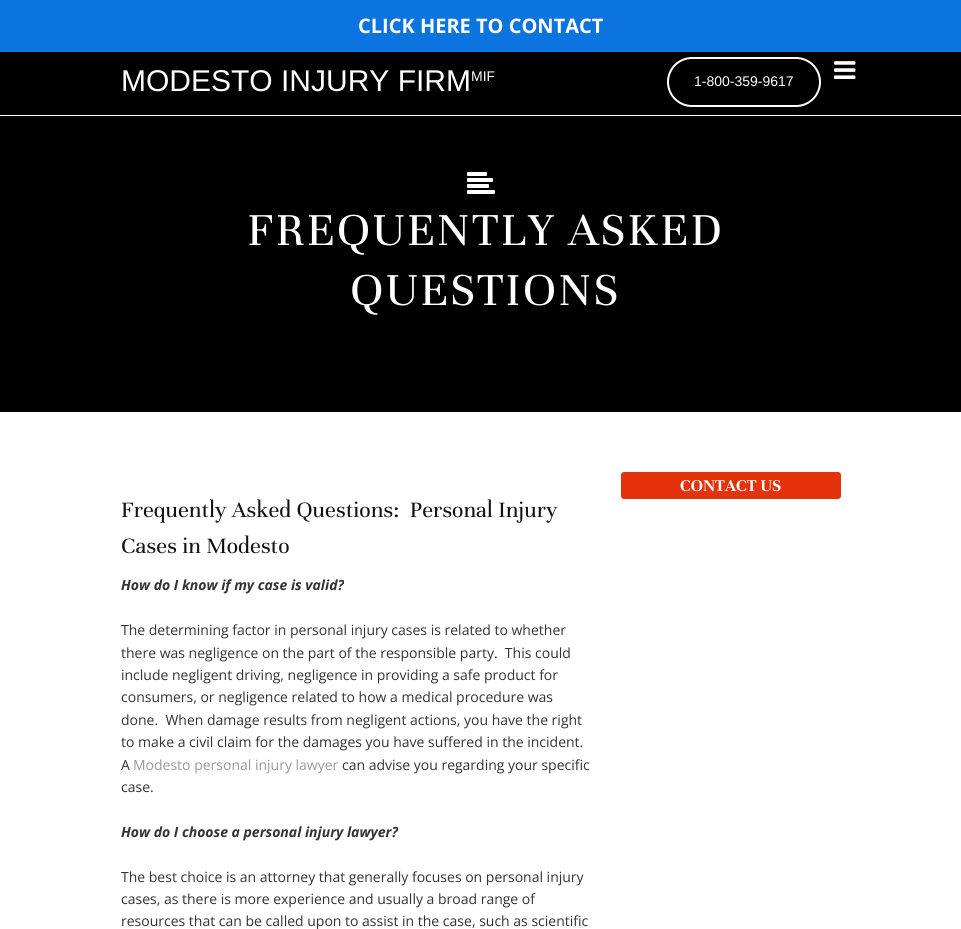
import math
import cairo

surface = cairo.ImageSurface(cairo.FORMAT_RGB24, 961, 929)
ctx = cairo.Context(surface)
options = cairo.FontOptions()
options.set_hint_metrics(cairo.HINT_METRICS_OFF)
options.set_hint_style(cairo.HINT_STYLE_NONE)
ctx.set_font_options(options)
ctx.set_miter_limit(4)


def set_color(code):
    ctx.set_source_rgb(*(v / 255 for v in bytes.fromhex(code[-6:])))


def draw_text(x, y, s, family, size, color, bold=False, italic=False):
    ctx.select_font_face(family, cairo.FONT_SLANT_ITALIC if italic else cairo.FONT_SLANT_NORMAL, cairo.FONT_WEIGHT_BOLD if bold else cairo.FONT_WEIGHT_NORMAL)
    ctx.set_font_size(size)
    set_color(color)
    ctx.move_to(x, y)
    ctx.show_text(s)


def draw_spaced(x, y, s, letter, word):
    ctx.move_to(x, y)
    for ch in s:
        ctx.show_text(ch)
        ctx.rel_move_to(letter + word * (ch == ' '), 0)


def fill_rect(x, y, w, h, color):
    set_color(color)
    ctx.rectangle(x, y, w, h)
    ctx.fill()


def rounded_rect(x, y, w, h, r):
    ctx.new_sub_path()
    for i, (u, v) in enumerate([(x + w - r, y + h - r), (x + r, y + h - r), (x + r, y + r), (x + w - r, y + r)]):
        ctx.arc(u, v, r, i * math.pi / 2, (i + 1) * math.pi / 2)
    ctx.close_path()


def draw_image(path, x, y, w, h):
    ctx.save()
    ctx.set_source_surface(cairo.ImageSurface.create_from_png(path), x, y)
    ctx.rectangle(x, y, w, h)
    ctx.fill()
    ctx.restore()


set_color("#ffffff")
ctx.paint()
fill_rect(0, 0, 961, 52, "#0c74df")
draw_text(358, 33, "CLICK HERE TO CONTACT", "Open Sans", 20, "#ffffff", bold=True)
fill_rect(0, 52, 961, 360, "#000000")
fill_rect(0, 115, 961, 1, "#ffffff")
draw_text(121, 91, "MODESTO INJURY FIRM", "Liberation Sans", 30, "#ffffff")
draw_text(471, 81, "MIF", "Liberation Sans", 14, "#ffffff")
rounded_rect(668, 58, 152, 48, 24)
ctx.stroke()
draw_text(694, 86, "1-800-359-9617", "Liberation Sans", 14, "#ffffff")
draw_image("assets/img1.png", 834, 61, 22, 18)
draw_image("assets/img2.png", 467, 172, 28, 22)
ctx.select_font_face("Unna")
ctx.set_font_size(50)
draw_spaced(247, 245, "FREQUENTLY ASKED", 2, 0)
draw_spaced(350, 305, "QUESTIONS", 2, 0)
set_color("#e4330c")
rounded_rect(621, 472, 220, 27, 3)
ctx.fill()
draw_text(680, 491, "CONTACT US", "Unna", 18, "#ffffff", bold=True)
draw_text(121, 517, "Frequently Asked Questions:  Personal Injury", "Unna", 24, "#121212")
draw_text(121, 553, "Cases in Modesto", "Unna", 24, "#121212")
draw_text(121, 590, "How do I know if my case is valid?", "Open Sans", 14, "#333333", bold=True, italic=True)
draw_text(121, 635, "The determining factor in personal injury cases is related to whether", "Open Sans", 14, "#333333")
draw_text(121, 658, "there was negligence on the part of the responsible party.  This could", "Open Sans", 14, "#333333")
draw_text(121, 680, "include negligent driving, negligence in providing a safe product for", "Open Sans", 14, "#333333")
draw_text(121, 702, "consumers, or negligence related to how a medical procedure was", "Open Sans", 14, "#333333")
draw_text(121, 725, "done.  When damage results from negligent actions, you have the right", "Open Sans", 14, "#333333")
draw_text(121, 747, "to make a civil claim for the damages you have suffered in the incident.", "Open Sans", 14, "#333333")
draw_text(121, 770, "A", "Open Sans", 14, "#333333")
draw_text(133, 770, "Modesto personal injury lawyer", "Open Sans", 14, "#999999")
draw_text(342, 770, "can advise you regarding your specific", "Open Sans", 14, "#333333")
draw_text(121, 792, "case.", "Open Sans", 14, "#333333")
draw_text(121, 837, "How do I choose a personal injury lawyer?", "Open Sans", 14, "#333333", bold=True, italic=True)
draw_text(121, 882, "The best choice is an attorney that generally focuses on personal injury", "Open Sans", 14, "#333333")
draw_text(121, 904, "cases, as there is more experience and usually a broad range of", "Open Sans", 14, "#333333")
draw_text(121, 926, "resources that can be called upon to assist in the case, such as scientific", "Open Sans", 14, "#333333")
surface.write_to_png("output.png")
